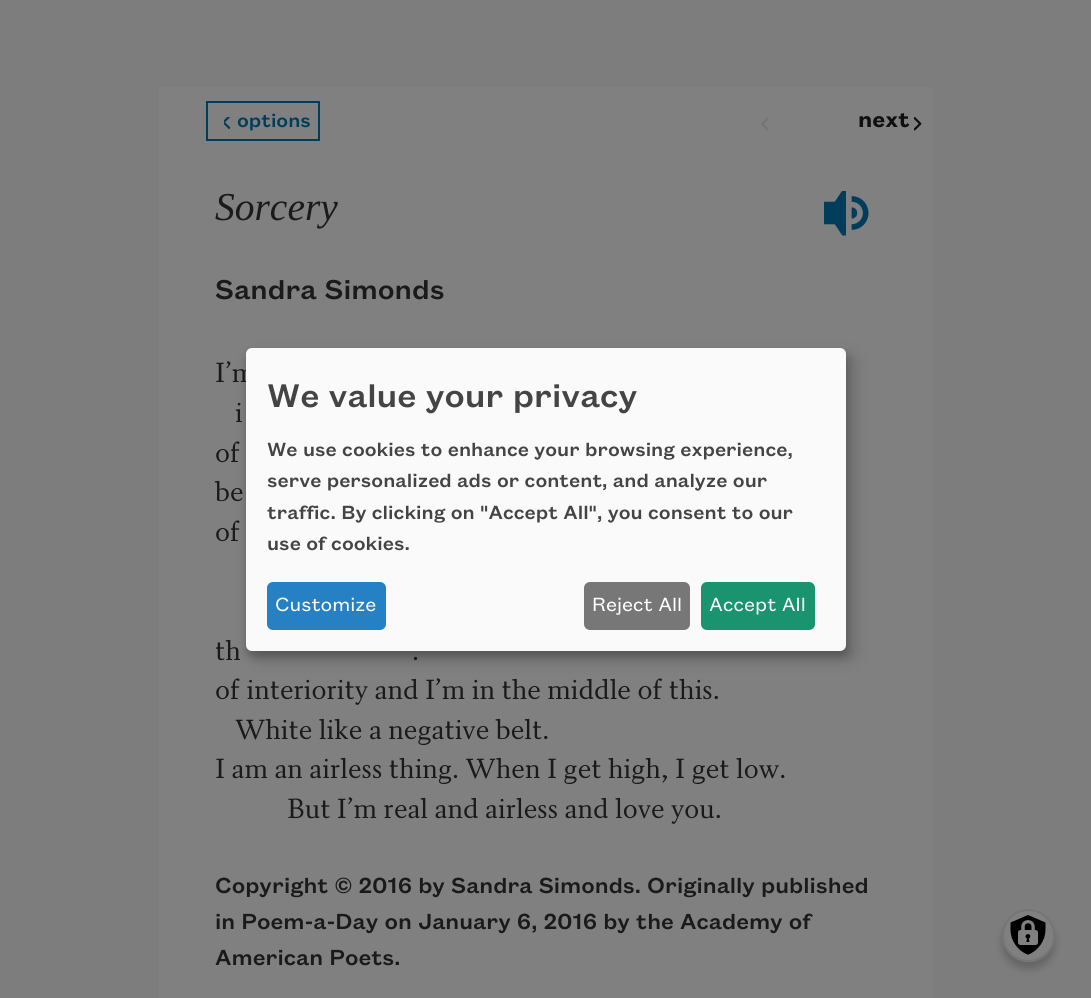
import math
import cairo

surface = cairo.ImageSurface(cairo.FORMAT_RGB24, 1091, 998)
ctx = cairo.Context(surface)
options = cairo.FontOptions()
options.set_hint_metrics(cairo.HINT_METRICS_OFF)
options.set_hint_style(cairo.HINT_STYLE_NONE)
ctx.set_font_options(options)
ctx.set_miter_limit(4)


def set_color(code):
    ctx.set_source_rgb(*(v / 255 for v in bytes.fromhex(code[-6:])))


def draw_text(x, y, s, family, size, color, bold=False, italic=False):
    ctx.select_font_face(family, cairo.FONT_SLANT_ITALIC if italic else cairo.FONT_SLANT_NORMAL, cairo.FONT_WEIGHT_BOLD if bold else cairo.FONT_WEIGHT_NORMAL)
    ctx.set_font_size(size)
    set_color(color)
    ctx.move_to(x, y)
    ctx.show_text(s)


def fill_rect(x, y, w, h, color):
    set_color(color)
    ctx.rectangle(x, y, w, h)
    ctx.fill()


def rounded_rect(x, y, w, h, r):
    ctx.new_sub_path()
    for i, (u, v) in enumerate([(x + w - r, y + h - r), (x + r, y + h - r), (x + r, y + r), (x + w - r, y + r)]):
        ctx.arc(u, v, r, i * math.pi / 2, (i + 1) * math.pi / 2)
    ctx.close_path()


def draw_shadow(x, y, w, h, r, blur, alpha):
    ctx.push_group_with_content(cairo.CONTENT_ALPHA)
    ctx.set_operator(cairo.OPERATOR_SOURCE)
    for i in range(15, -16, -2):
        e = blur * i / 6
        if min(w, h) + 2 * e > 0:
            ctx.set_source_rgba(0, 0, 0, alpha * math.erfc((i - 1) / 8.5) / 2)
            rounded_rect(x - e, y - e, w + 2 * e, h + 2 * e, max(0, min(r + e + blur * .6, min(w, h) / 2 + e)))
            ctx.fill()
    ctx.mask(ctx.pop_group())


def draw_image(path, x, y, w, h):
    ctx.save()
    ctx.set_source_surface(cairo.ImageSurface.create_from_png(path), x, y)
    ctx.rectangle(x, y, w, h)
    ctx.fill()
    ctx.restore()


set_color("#7d7d7d")
ctx.paint()
fill_rect(159, 87, 774, 911, "#808080")
ctx.rectangle(207, 102, 112, 38)
set_color("#003d5a")
ctx.stroke()
draw_image("assets/img1.png", 224, 117, 7, 12)
draw_text(237, 127, "options", "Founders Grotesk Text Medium", 21, "#003d5a")
draw_image("assets/img2.png", 761, 117, 7, 14)
draw_text(858, 127, "next", "Founders Grotesk Text SemiBold", 24, "#0f0f0f")
draw_image("assets/img3.png", 914, 117, 8, 14)
draw_text(215, 220, "Sorcery", "Liberation Serif", 39.5, "#1a1a1a", italic=True)
draw_image("assets/img4.png", 824, 191, 45, 45)
draw_text(215, 299, "Sandra Simonds", "Founders Grotesk Text Medium", 30, "#1a1a1a")
draw_text(215, 382, "I’m", "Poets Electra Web", 26.4, "#1a1a1a")
draw_text(235, 422, "i", "Poets Electra Web", 26.4, "#1a1a1a")
draw_text(215, 462, "of", "Poets Electra Web", 26.4, "#1a1a1a")
draw_text(215, 501, "be", "Poets Electra Web", 26.4, "#1a1a1a")
draw_text(215, 541, "of", "Poets Electra Web", 26.4, "#1a1a1a")
draw_text(215, 660, "th", "Poets Electra Web", 26.4, "#1a1a1a")
draw_text(412, 660, ".", "Poets Electra Web", 26.4, "#1a1a1a")
draw_text(215, 699, "of interiority and I’m in the middle of this.", "Poets Electra Web", 26.4, "#1a1a1a")
draw_text(235, 739, "White like a negative belt.", "Poets Electra Web", 26.4, "#1a1a1a")
draw_text(215, 778, "I am an airless thing. When I get high, I get low.", "Poets Electra Web", 26.4, "#1a1a1a")
draw_text(287, 818, "But I’m real and airless and love you.", "Poets Electra Web", 26.4, "#1a1a1a")
draw_text(215, 893, "Copyright © 2016 by Sandra Simonds. Originally published", "Founders Grotesk Text Medium", 24, "#1a1a1a")
draw_text(215, 929, "in Poem-a-Day on January 6, 2016 by the Academy of", "Founders Grotesk Text Medium", 24, "#1a1a1a")
draw_text(215, 965, "American Poets.", "Founders Grotesk Text Medium", 24, "#1a1a1a")
set_color("#000000")
draw_shadow(254, 356, 600, 303, 6, 7.5, 0.19)
draw_shadow(246, 354, 600, 303, 6, 4.5, 0.2)
set_color("#fafafa")
rounded_rect(246, 348, 600, 303, 6)
ctx.fill()
draw_text(267, 407, "We value your privacy", "Founders Grotesk Text Medium", 36, "#444444")
draw_text(267, 456, "We use cookies to enhance your browsing experience,", "Founders Grotesk Text Medium", 21, "#444444")
draw_text(267, 487, "serve personalized ads or content, and analyze our", "Founders Grotesk Text Medium", 21, "#444444")
draw_text(267, 519, "traffic. By clicking on \"Accept All\", you consent to our", "Founders Grotesk Text Medium", 21, "#444444")
draw_text(267, 550, "use of cookies.", "Founders Grotesk Text Medium", 21, "#444444")
set_color("#2581c4")
rounded_rect(267, 582, 119, 48, 6)
ctx.fill()
draw_text(275, 611, "Customize", "Founders Grotesk Text", 21, "#ffffff")
set_color("#777777")
rounded_rect(584, 582, 106, 48, 6)
ctx.fill()
draw_text(592, 611, "Reject All", "Founders Grotesk Text", 21, "#ffffff")
set_color("#1a936f")
rounded_rect(701, 582, 114, 48, 6)
ctx.fill()
draw_text(709, 611, "Accept All", "Founders Grotesk Text", 21, "#ffffff")
set_color("#000000")
draw_shadow(1002, 917, 53, 52, 26, 4, 0.2)
set_color("#808080")
ctx.arc(1028.5, 935.5, 26.5, 0, 2 * math.pi)
ctx.fill()
draw_image("assets/img5.png", 1010, 915, 36, 40)
ctx.arc(1028.5, 935.5, 25.5, 0, 2 * math.pi)
set_color("#757575")
ctx.stroke()
surface.write_to_png("output.png")
